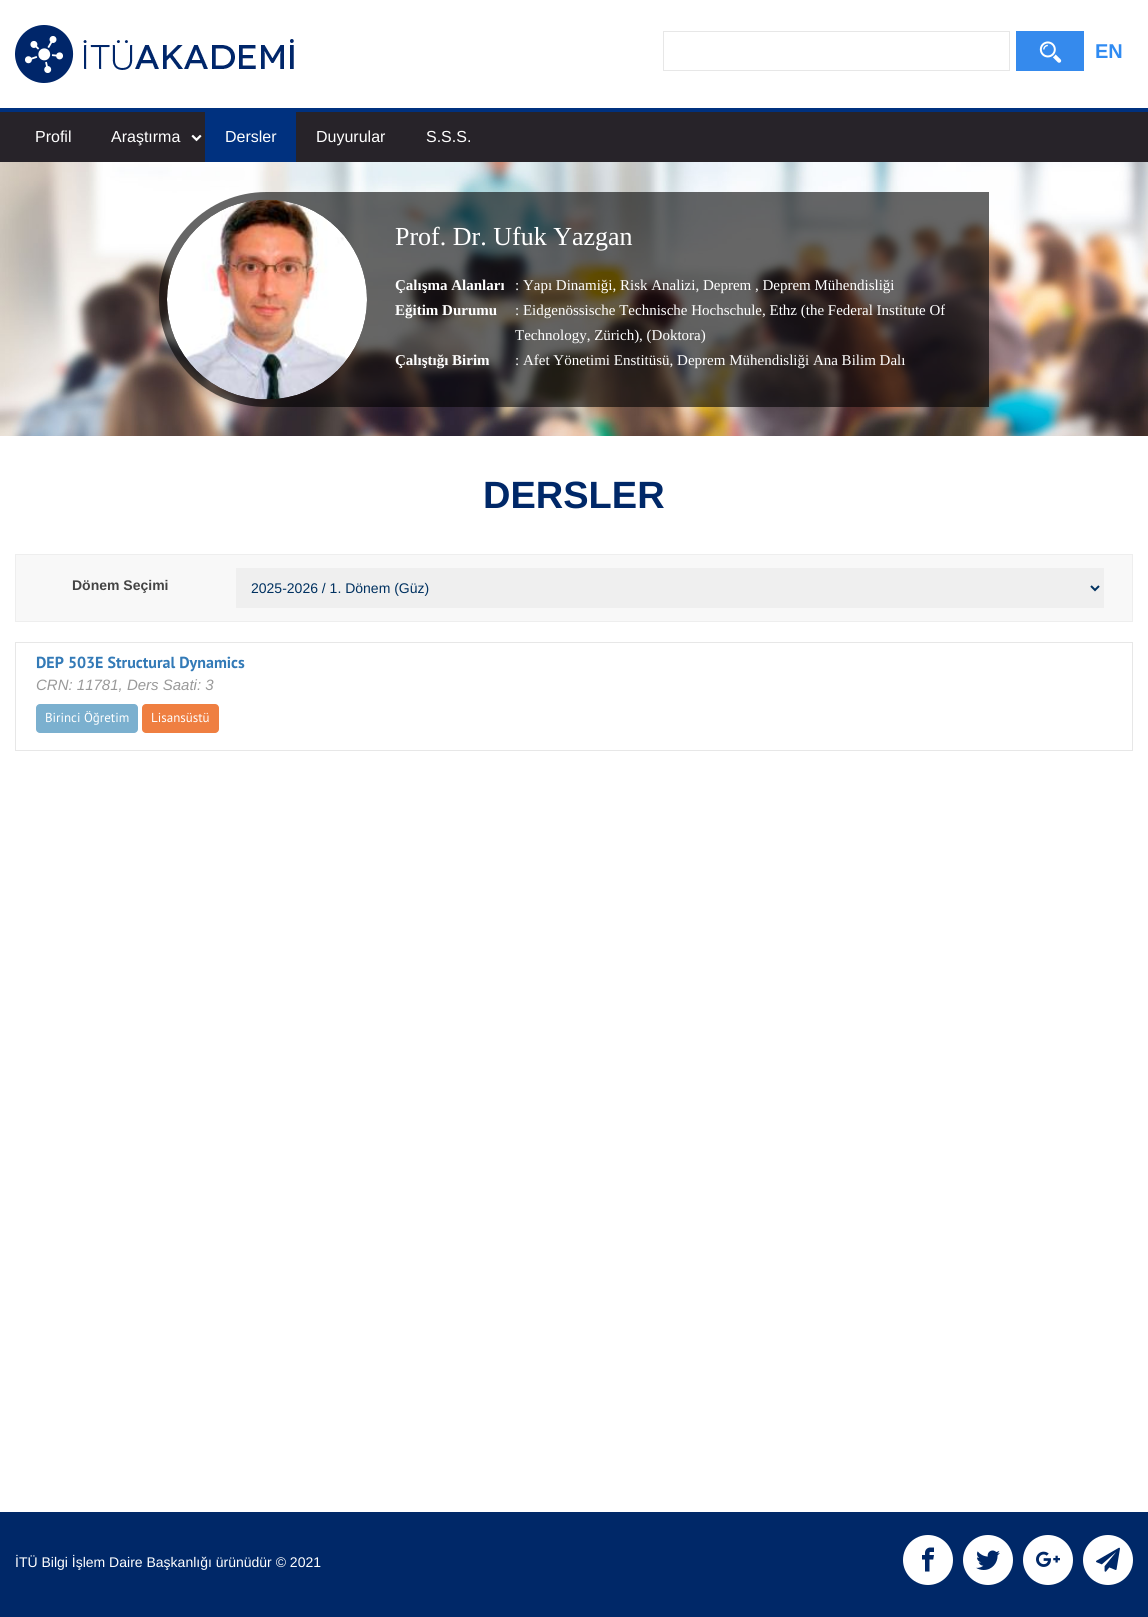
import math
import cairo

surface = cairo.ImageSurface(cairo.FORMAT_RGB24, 1148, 1617)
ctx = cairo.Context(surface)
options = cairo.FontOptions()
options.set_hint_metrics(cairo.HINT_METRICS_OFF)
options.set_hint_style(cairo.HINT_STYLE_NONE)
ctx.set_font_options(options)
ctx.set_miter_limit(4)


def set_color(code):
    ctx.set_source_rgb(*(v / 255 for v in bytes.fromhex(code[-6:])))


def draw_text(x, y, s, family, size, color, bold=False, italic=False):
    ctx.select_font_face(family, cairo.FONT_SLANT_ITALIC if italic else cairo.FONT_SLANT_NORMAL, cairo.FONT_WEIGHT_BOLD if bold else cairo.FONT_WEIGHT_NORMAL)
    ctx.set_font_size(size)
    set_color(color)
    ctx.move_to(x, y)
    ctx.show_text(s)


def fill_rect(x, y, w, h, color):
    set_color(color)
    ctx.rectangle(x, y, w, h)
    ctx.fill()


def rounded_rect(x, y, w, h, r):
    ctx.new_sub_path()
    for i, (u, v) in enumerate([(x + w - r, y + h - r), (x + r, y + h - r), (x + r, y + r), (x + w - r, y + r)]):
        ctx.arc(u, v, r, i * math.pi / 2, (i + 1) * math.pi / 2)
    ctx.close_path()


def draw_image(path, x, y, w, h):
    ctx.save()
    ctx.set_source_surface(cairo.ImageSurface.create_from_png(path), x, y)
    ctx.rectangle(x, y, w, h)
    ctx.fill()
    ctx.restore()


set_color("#ffffff")
ctx.paint()
draw_image("assets/img1.png", 15, 25, 279, 58)
ctx.rectangle(663.5, 31.5, 346, 39)
set_color("#e7e7e7")
ctx.set_line_width(1)
ctx.stroke()
fill_rect(1016, 31, 68, 40, "#358aed")
draw_image("assets/img2.png", 1039, 41, 23, 22)
draw_text(1095, 58, "EN", "Liberation Sans", 20, "#308bf2", bold=True)
fill_rect(0, 112, 1148, 50, "#272329")
fill_rect(0, 108, 1148, 4, "#00317f")
draw_text(35, 142, "Profil", "Liberation Sans", 16, "#ffffff")
draw_text(111, 142, "Araştırma", "Liberation Sans", 16, "#ffffff")
draw_image("assets/img3.png", 191, 134, 11, 8)
fill_rect(205, 112, 91, 50, "#00317f")
draw_text(225, 142, "Dersler", "Liberation Sans", 16, "#ffffff")
draw_text(316, 142, "Duyurular", "Liberation Sans", 16, "#ffffff")
draw_text(426, 142, "S.S.S.", "Liberation Sans", 16, "#ffffff")
draw_image("assets/img4.png", 0, 162, 1148, 274)
ctx.set_source_rgba(0, 0, 0, 0.6)
ctx.new_path()
ctx.move_to(266.5, 192)
ctx.line_to(989, 192)
ctx.line_to(989, 407)
ctx.line_to(266.5, 407)
ctx.curve_to(207, 407, 159, 359, 159, 299.5)
ctx.curve_to(159, 240, 207, 192, 266.5, 192)
ctx.close_path()
ctx.fill()
draw_image("assets/img5.png", 167, 199, 200, 201)
draw_text(395, 245, "Prof. Dr. Ufuk Yazgan", "Liberation Serif", 26, "#ffffff")
draw_text(395, 290, "Çalışma Alanları", "Liberation Serif", 15, "#ffffff", bold=True)
draw_text(515, 290, ": Yapı Dinamiği, Risk Analizi, Deprem , Deprem Mühendisliği", "Liberation Serif", 15, "#ffffff")
draw_text(395, 315, "Eğitim Durumu", "Liberation Serif", 15, "#ffffff", bold=True)
draw_text(515, 315, ": Eidgenössische Technische Hochschule, Ethz (the Federal Institute Of", "Liberation Serif", 15, "#ffffff")
draw_text(515, 340, "Technology, Zürich), (Doktora)", "Liberation Serif", 15, "#ffffff")
draw_text(395, 365, "Çalıştığı Birim", "Liberation Serif", 15, "#ffffff", bold=True)
draw_text(515, 365, ": Afet Yönetimi Enstitüsü, Deprem Mühendisliği Ana Bilim Dalı", "Liberation Serif", 15, "#ffffff")
draw_text(483, 508, "DERSLER", "Liberation Sans", 38, "#002868", bold=True)
set_color("#f8f8f8")
ctx.rectangle(15.5, 554.5, 1117, 67)
ctx.fill_preserve()
set_color("#eeeeee")
ctx.stroke()
draw_text(72, 590, "Dönem Seçimi", "Liberation Sans", 14, "#444444", bold=True)
fill_rect(236, 568, 868, 40, "#efefef")
ctx.new_path()
ctx.move_to(1091, 586)
ctx.line_to(1095, 590)
ctx.line_to(1099, 586)
set_color("#003160")
ctx.set_line_width(2)
ctx.stroke()
draw_text(251, 593, "2025-2026 / 1. Dönem (Güz)", "Liberation Sans", 14, "#003160")
fill_rect(15, 642, 1118, 1, "#e7e7e7")
fill_rect(1132, 642, 1, 109, "#e7e7e7")
fill_rect(15, 750, 1118, 1, "#e7e7e7")
fill_rect(15, 642, 1, 109, "#e7e7e7")
draw_text(36, 668, "DEP 503E Structural Dynamics", "PT Sans", 16, "#337ab7", bold=True)
draw_text(36, 690, "CRN: 11781, Ders Saati: 3", "Liberation Sans", 15, "#999999", italic=True)
set_color("#7bb0cf")
rounded_rect(36, 704, 102, 29, 4)
ctx.fill()
draw_text(45, 722, "Birinci Öğretim", "PT Sans", 13, "#ffffff")
set_color("#ef7f41")
rounded_rect(142, 704, 77, 29, 4)
ctx.fill()
draw_text(151, 722, "Lisansüstü", "PT Sans", 13, "#ffffff")
fill_rect(0, 1512, 1148, 105, "#002868")
draw_text(15, 1567, "İTÜ Bilgi İşlem Daire Başkanlığı ürünüdür © 2021", "Liberation Sans", 14, "#ffffff")
ctx.new_path()
ctx.arc(928, 1560, 25, 0, 2 * math.pi)
ctx.fill()
draw_image("assets/img6.png", 922, 1547, 12, 25)
ctx.arc(988, 1560, 25, 0, 2 * math.pi)
ctx.fill()
draw_image("assets/img7.png", 976, 1550, 24, 20)
ctx.arc(1048, 1560, 25, 0, 2 * math.pi)
ctx.fill()
draw_image("assets/img8.png", 1036, 1551, 24, 16)
ctx.arc(1108, 1560, 25, 0, 2 * math.pi)
ctx.fill()
draw_image("assets/img9.png", 1096, 1547, 24, 25)
surface.write_to_png("output.png")
